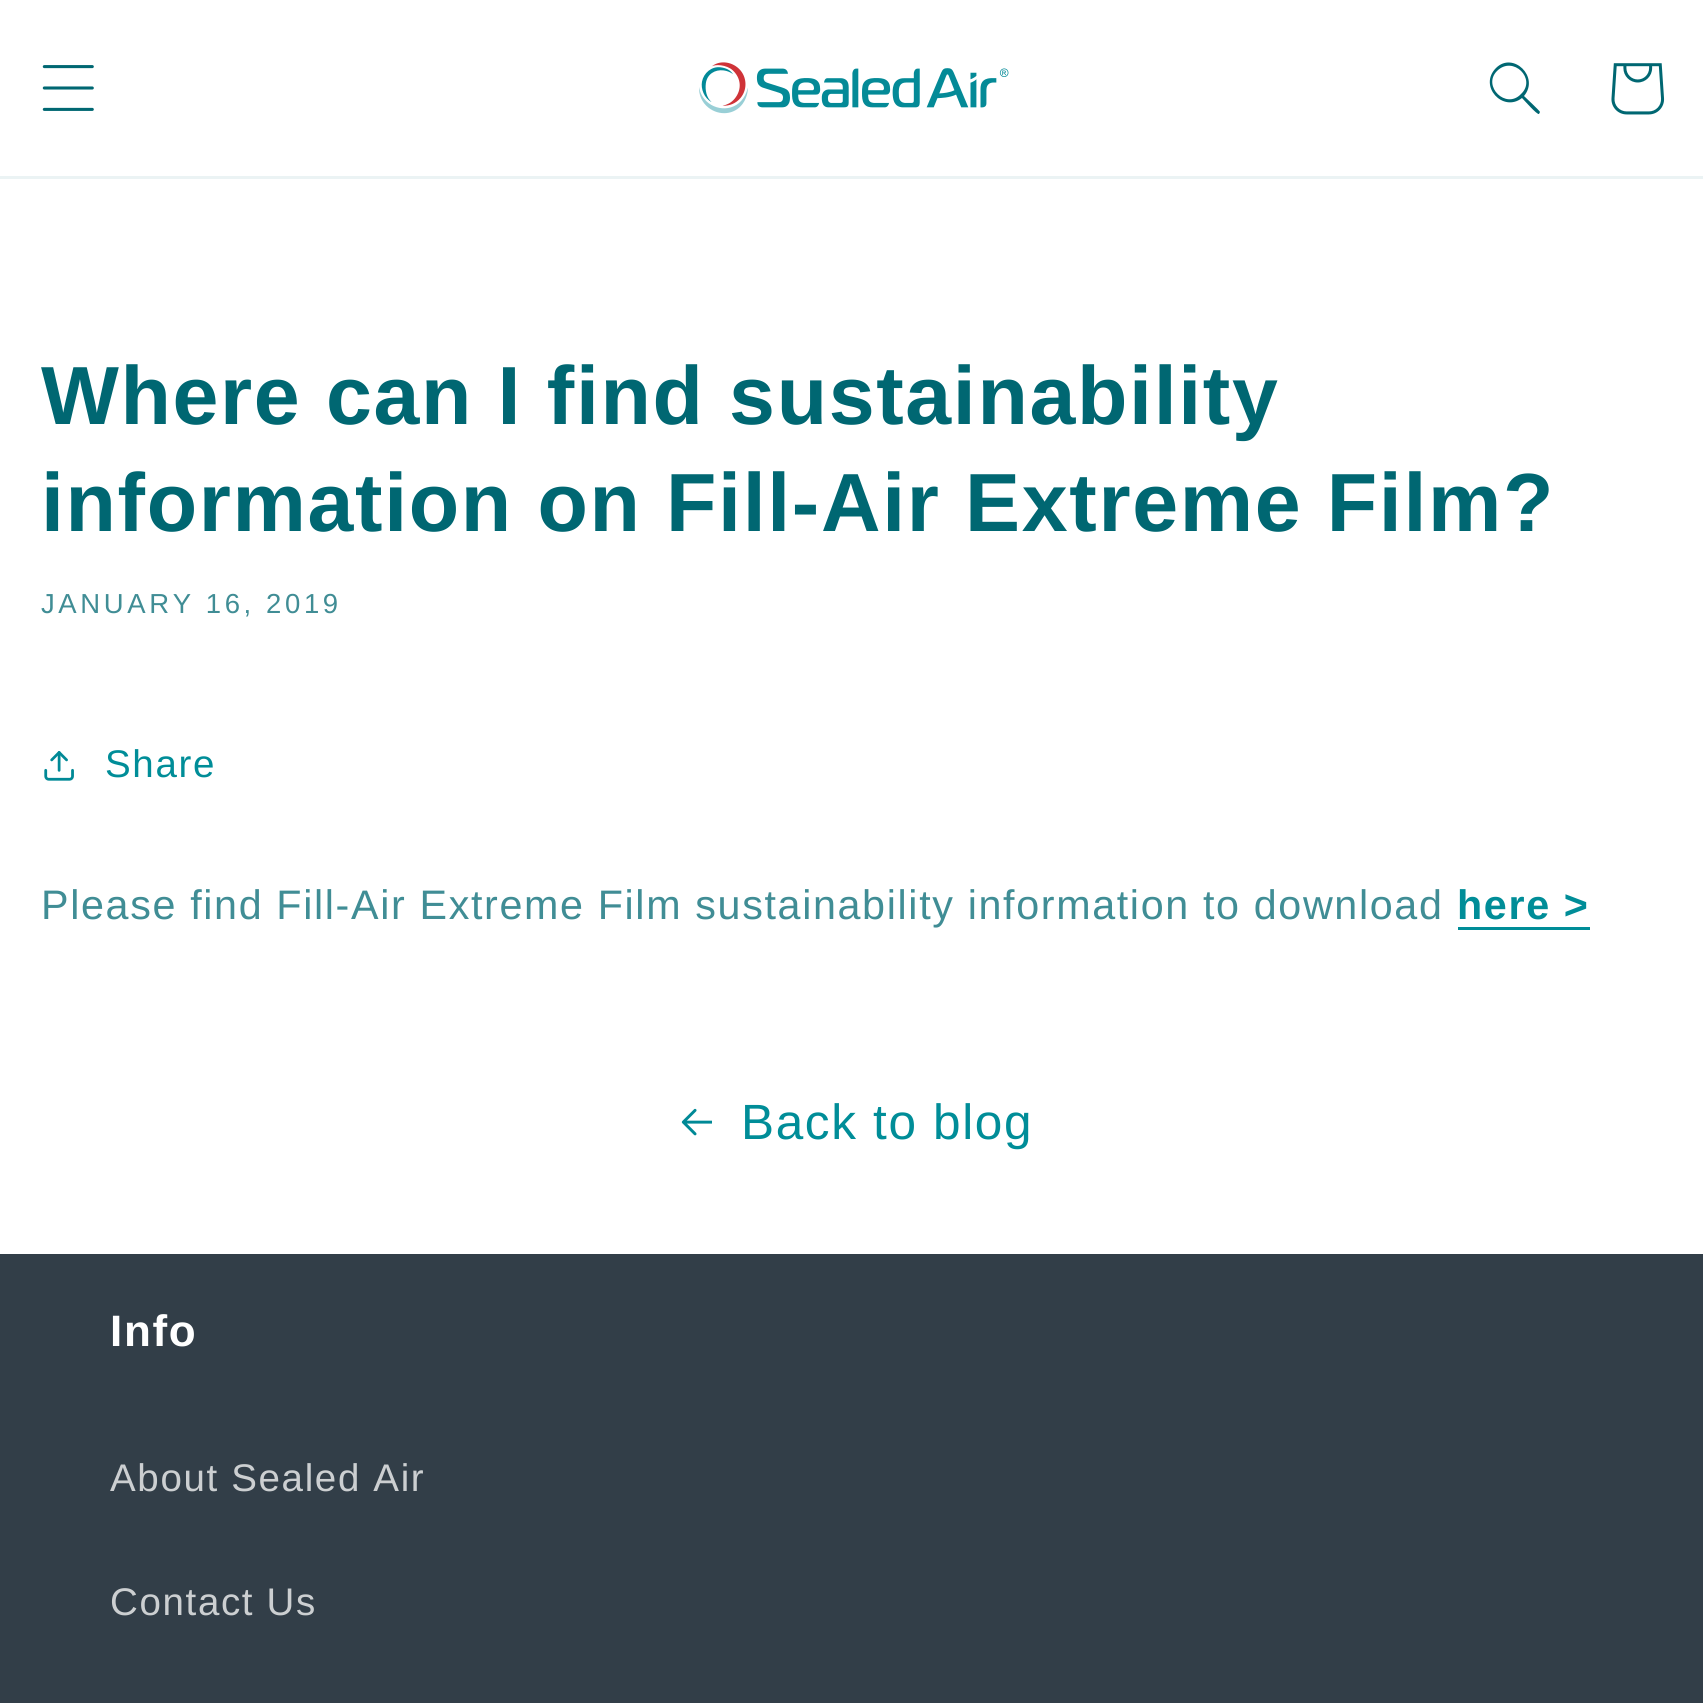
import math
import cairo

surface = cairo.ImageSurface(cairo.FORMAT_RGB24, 1703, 1703)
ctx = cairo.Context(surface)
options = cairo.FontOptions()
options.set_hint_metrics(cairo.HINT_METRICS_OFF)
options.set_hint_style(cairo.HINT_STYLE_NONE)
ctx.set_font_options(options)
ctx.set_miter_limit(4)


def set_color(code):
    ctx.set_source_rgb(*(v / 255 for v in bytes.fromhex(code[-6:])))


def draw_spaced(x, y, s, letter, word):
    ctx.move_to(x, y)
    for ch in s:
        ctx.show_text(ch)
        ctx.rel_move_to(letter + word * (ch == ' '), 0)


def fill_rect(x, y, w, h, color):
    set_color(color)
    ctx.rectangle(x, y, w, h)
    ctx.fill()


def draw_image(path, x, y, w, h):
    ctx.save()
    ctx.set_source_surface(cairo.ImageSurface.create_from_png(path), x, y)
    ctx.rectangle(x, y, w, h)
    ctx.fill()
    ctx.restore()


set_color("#ffffff")
ctx.paint()
fill_rect(0, 176, 1703, 3, "#ebf3f4")
draw_image("assets/img1.png", 42, 65, 52, 46)
draw_image("assets/img2.png", 699, 62, 310, 52)
set_color("#006772")
ctx.set_fill_rule(cairo.FILL_RULE_EVEN_ODD)
ctx.new_path()
ctx.move_to(1521, 94)
ctx.curve_to(1506, 110, 1482, 86, 1497, 71)
ctx.curve_to(1513, 55, 1537, 79, 1521, 94)
ctx.close_path()
ctx.move_to(1522, 98)
ctx.curve_to(1503, 113, 1478, 86, 1496, 68)
ctx.curve_to(1513, 51, 1540, 77, 1524, 96)
ctx.curve_to(1526, 98, 1540, 111, 1540, 112)
ctx.line_to(1539, 114)
ctx.curve_to(1537, 115, 1524, 100, 1522, 98)
ctx.close_path()
ctx.fill()
draw_image("assets/img3.png", 1611, 63, 54, 52)
ctx.select_font_face("Arimo", cairo.FONT_SLANT_NORMAL, cairo.FONT_WEIGHT_BOLD)
ctx.set_font_size(82.5)
draw_spaced(41, 424, "Where can I find sustainability", 1.65, 0)
draw_spaced(41, 531, "information on Fill-Air Extreme Film?", 1.65, 0)
ctx.select_font_face("Arimo")
ctx.set_font_size(27.5)
set_color("#408d95")
draw_spaced(41, 613, "JANUARY 16, 2019", 3.6, 0)
draw_image("assets/img4.png", 44, 751, 30, 30)
ctx.set_font_size(38.5)
set_color("#008d98")
draw_spaced(105, 777, "Share", 1.65, 0)
ctx.set_font_size(41.25)
set_color("#408d95")
draw_spaced(41, 919, "Please find Fill-Air Extreme Film sustainability information to download", 1.65, 0)
ctx.select_font_face("Arimo", cairo.FONT_SLANT_NORMAL, cairo.FONT_WEIGHT_BOLD)
set_color("#008d98")
draw_spaced(1457, 919, "here >", 1.65, 0)
fill_rect(1458, 927, 132, 3, "#008d98")
draw_image("assets/img5.png", 681, 1108, 31, 28)
ctx.select_font_face("Arimo")
ctx.set_font_size(49.5)
draw_spaced(741, 1139, "Back to blog", 1.65, 0)
fill_rect(0, 1254, 1703, 449, "#323e48")
ctx.select_font_face("Arimo", cairo.FONT_SLANT_NORMAL, cairo.FONT_WEIGHT_BOLD)
ctx.set_font_size(44)
set_color("#ffffff")
draw_spaced(110, 1346, "Info", 1.65, 0)
ctx.select_font_face("Arimo")
ctx.set_font_size(38.5)
set_color("#cccfd1")
draw_spaced(110, 1491, "About Sealed Air", 1.65, 0)
draw_spaced(110, 1615, "Contact Us", 1.65, 0)
surface.write_to_png("output.png")
